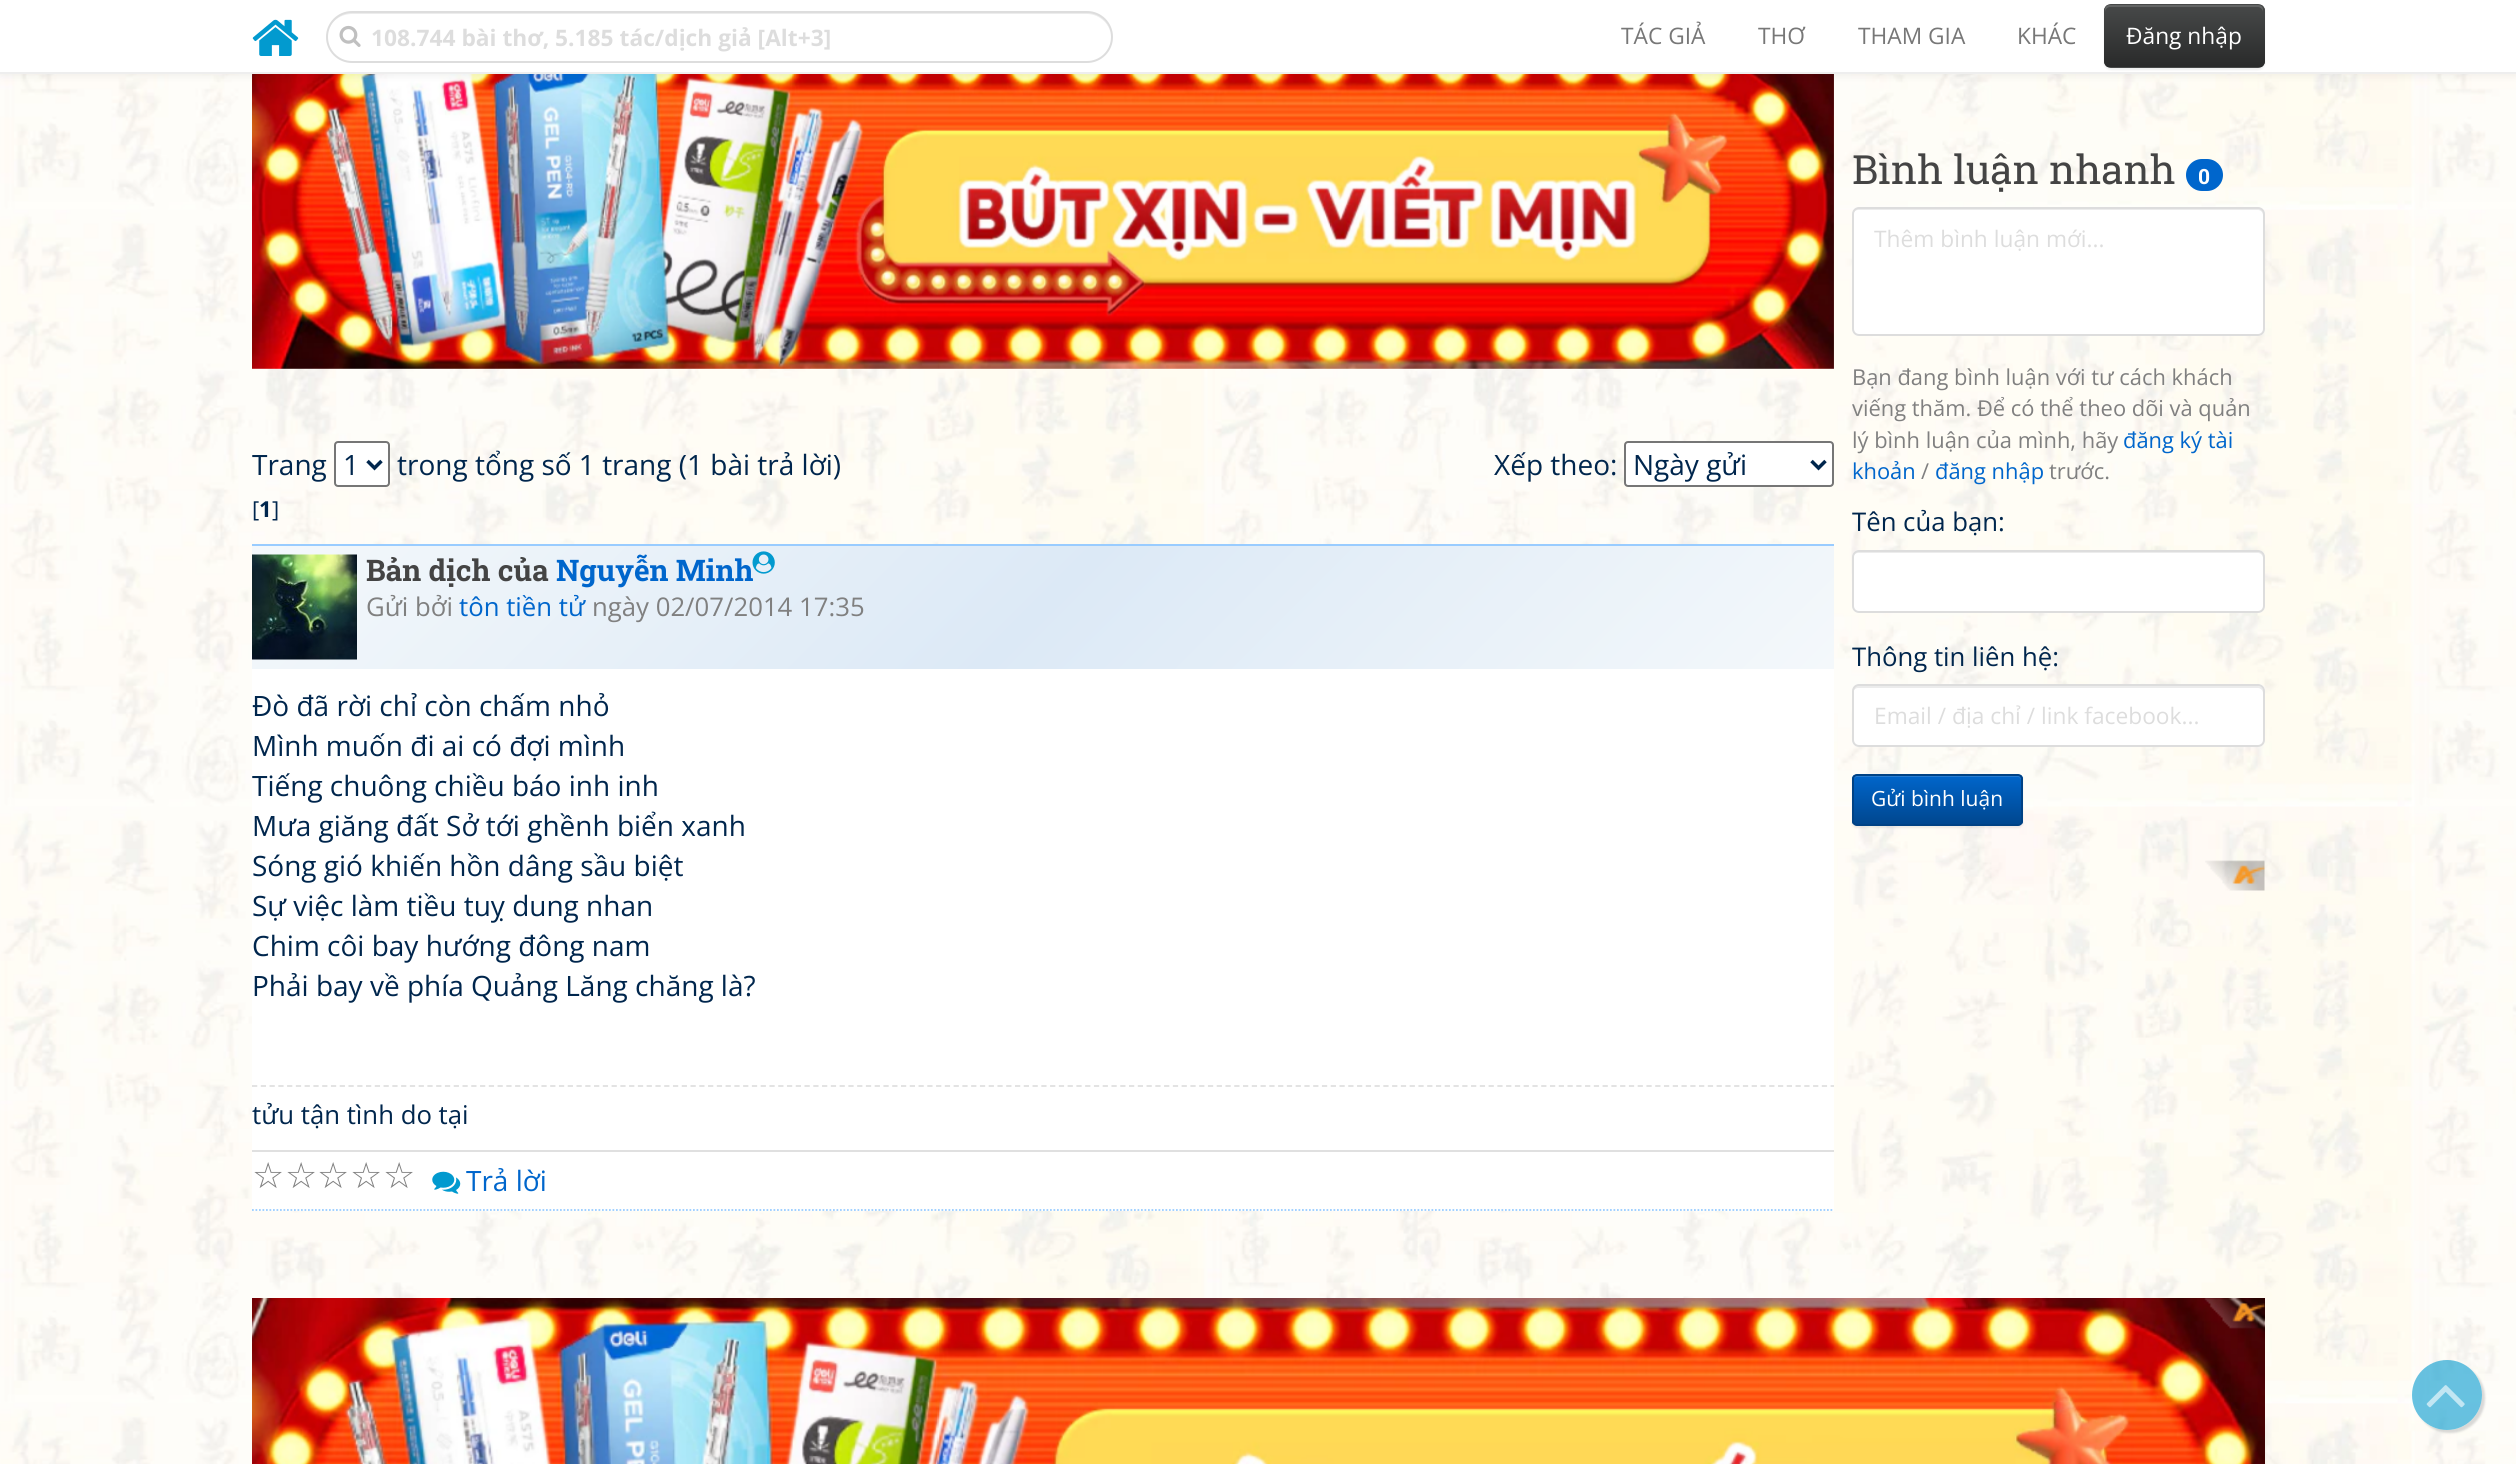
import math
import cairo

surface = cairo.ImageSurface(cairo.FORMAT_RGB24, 2516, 1464)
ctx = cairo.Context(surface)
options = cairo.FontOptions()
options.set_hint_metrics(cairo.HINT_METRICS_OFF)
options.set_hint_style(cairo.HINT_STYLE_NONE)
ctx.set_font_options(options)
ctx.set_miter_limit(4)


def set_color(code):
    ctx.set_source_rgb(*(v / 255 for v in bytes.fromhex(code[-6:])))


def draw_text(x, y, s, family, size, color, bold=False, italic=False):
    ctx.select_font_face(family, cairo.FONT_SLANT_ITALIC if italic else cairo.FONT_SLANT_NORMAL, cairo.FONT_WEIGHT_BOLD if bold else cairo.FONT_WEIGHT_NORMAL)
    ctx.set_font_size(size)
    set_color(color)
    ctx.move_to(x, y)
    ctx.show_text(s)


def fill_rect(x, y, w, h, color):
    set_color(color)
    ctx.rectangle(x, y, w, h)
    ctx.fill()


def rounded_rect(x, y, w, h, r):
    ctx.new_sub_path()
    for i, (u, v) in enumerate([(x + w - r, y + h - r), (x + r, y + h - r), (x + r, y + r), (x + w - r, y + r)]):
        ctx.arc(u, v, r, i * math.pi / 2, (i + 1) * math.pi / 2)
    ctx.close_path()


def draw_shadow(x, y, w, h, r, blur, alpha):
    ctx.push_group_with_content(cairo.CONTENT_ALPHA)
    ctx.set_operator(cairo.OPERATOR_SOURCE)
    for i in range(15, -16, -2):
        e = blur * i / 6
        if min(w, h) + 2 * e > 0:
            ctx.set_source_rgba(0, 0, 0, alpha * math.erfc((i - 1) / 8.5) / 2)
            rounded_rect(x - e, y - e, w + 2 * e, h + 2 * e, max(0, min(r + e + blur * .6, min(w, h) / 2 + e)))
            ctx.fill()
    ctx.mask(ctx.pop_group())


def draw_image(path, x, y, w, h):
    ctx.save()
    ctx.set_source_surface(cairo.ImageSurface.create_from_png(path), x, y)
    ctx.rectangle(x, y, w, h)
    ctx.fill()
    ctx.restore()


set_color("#ffffff")
ctx.paint()
draw_image("assets/img1.png", 0, 74, 2516, 1390)
draw_image("assets/img5.png", 252, 74, 1582, 295)
set_color("#000000")
draw_shadow(0, 2, 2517, 73, 0, 4.5, 0.07)
fill_rect(0, 0, 2516, 72, "#ffffff")
fill_rect(0, 72, 2516, 2, "#eeeeee")
draw_image("assets/img2.png", 252, 19, 47, 37)
set_color("#ececec")
ctx.new_path()
ctx.move_to(352, 14)
ctx.line_to(1087, 14)
ctx.curve_to(1100, 14, 1111, 25, 1111, 37)
ctx.curve_to(1111, 29, 1107, 21, 1100, 16)
ctx.curve_to(1096, 13, 1091, 12, 1086, 12)
ctx.line_to(352, 12)
ctx.curve_to(338, 12, 327, 24, 327, 37)
ctx.curve_to(327, 25, 338, 14, 352, 14)
ctx.close_path()
ctx.fill()
rounded_rect(327, 12, 785, 50, 25)
set_color("#dddddd")
ctx.stroke()
draw_image("assets/img3.png", 339, 25, 22, 22)
draw_text(371, 46, "108.744 bài thơ, 5.185 tác/dịch giả [Alt+3]", "Open Sans", 22.75, "#dddddd", bold=True)
draw_text(1621, 44, "TÁC GIẢ", "Open Sans", 22.75, "#777777")
draw_text(1758, 44, "THƠ", "Open Sans", 22.75, "#777777")
draw_text(1858, 44, "THAM GIA", "Open Sans", 22.75, "#777777")
draw_text(2017, 44, "KHÁC", "Open Sans", 22.75, "#777777")
set_color("#000000")
draw_shadow(2104, 5, 161, 65, 7, 1, 0.07)
set_color("#474949")
rounded_rect(2104, 4, 161, 64, 7)
ctx.fill()
ctx.save()
rounded_rect(2104, 4, 161, 64, 7)
ctx.clip()
gradient = cairo.LinearGradient(2184, 5.2, 2184, 67)
gradient.add_color_stop_rgba(0, 0.278, 0.286, 0.286, 1)
gradient.add_color_stop_rgba(1, 0.161, 0.165, 0.165, 1)
ctx.set_source(gradient)
ctx.rectangle(2104, 5, 161, 62)
ctx.fill()
ctx.restore()
set_color("#626464")
ctx.new_path()
ctx.move_to(2110, 7)
ctx.line_to(2258, 7)
ctx.curve_to(2260, 7, 2263, 9, 2263, 12)
ctx.line_to(2263, 10)
ctx.curve_to(2263, 7, 2261, 5, 2258, 5)
ctx.line_to(2110, 5)
ctx.curve_to(2107, 5, 2105, 7, 2105, 10)
ctx.line_to(2105, 12)
ctx.curve_to(2105, 9, 2108, 7, 2110, 7)
ctx.close_path()
ctx.fill()
draw_text(2126, 44, "Đăng nhập", "Open Sans", 22.75, "#ffffff")
ctx.save()
ctx.set_fill_rule(cairo.FILL_RULE_EVEN_ODD)
ctx.new_path()
ctx.move_to(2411, 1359)
ctx.line_to(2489, 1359)
ctx.line_to(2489, 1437)
ctx.line_to(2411, 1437)
ctx.close_path()
ctx.move_to(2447, 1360)
ctx.curve_to(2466.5, 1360, 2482, 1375.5, 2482, 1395)
ctx.curve_to(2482, 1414.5, 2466.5, 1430, 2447, 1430)
ctx.curve_to(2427.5, 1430, 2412, 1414.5, 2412, 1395)
ctx.curve_to(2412, 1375.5, 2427.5, 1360, 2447, 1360)
ctx.close_path()
ctx.clip()
set_color("#c0c0c0")
draw_shadow(2415, 1363, 70, 70, 35, 1, 0.6)
ctx.restore()
ctx.set_source_rgba(0.008, 0.604, 0.812, 0.6)
ctx.arc(2447, 1395, 35, 0, 2 * math.pi)
ctx.fill()
draw_image("assets/img4.png", 2426, 1385, 39, 23)
draw_text(252, 475, "Trang", "Open Sans", 28, "#00264d")
set_color("#ffffff")
rounded_rect(335, 442, 54, 44, 3)
ctx.fill_preserve()
set_color("#767676")
ctx.stroke()
ctx.new_path()
ctx.move_to(367.5, 461)
ctx.line_to(374.5, 468)
ctx.line_to(381.5, 461)
set_color("#00264d")
ctx.set_line_width(3.5)
ctx.stroke()
draw_text(343, 475, "1", "Open Sans", 28, "#00264d")
draw_text(397, 475, "trong tổng số 1 trang (1 bài trả lời)", "Open Sans", 28, "#00264d")
draw_text(252, 517, "[", "Open Sans", 22, "#00264d")
draw_text(259, 517, "1", "Open Sans", 22, "#00264d", bold=True)
draw_text(272, 517, "]", "Open Sans", 22, "#00264d")
draw_text(1494, 475, "Xếp theo:", "Open Sans", 28, "#00264d")
set_color("#ffffff")
rounded_rect(1625, 442, 208, 44, 3)
ctx.fill_preserve()
set_color("#767676")
ctx.set_line_width(2)
ctx.stroke()
ctx.new_path()
ctx.move_to(1811.5, 461)
ctx.line_to(1818.5, 468)
ctx.line_to(1825.5, 461)
set_color("#00264d")
ctx.set_line_width(3.5)
ctx.stroke()
draw_text(1633, 475, "Ngày gửi", "Open Sans", 28, "#00264d")
fill_rect(252, 669, 1582, 542, "#ffffff")
fill_rect(252, 544, 1582, 2, "#99ccff")
ctx.new_path()
ctx.move_to(252, 1210)
ctx.line_to(1834, 1210)
ctx.set_line_width(1.8)
ctx.set_dash([1.75, 1.75])
ctx.stroke()
gradient = cairo.LinearGradient(1469, 1033, 617, 181)
gradient.add_color_stop_rgba(0, 0.957, 0.973, 0.984, 1)
gradient.add_color_stop_rgba(0.5, 0.863, 0.914, 0.965, 1)
gradient.add_color_stop_rgba(1, 0.957, 0.973, 0.984, 1)
ctx.set_source(gradient)
ctx.rectangle(252, 546, 1582, 123)
ctx.fill()
draw_image("assets/img6.png", 252, 554, 105, 106)
draw_text(366, 581, "Bản dịch của", "Roboto Slab", 29.75, "#444444", bold=True)
draw_text(556, 581, "Nguyễn Minh", "Roboto Slab", 29.75, "#0066cc", bold=True)
draw_image("assets/img7.png", 752, 551, 23, 23)
draw_text(366, 616, "Gửi bởi", "Open Sans", 25.75, "#808080")
draw_text(459, 616, "tôn tiền tử", "Open Sans", 25.75, "#0066cc")
draw_text(592, 616, "ngày 02/07/2014 17:35", "Open Sans", 25.75, "#808080")
draw_text(252, 716, "Đò đã rời chỉ còn chấm nhỏ", "Open Sans", 28, "#00264d")
draw_text(252, 756, "Mình muốn đi ai có đợi mình", "Open Sans", 28, "#00264d")
draw_text(252, 796, "Tiếng chuông chiều báo inh inh", "Open Sans", 28, "#00264d")
draw_text(252, 836, "Mưa giăng đất Sở tới ghềnh biển xanh", "Open Sans", 28, "#00264d")
draw_text(252, 876, "Sóng gió khiến hồn dâng sầu biệt", "Open Sans", 28, "#00264d")
draw_text(252, 916, "Sự việc làm tiều tuỵ dung nhan", "Open Sans", 28, "#00264d")
draw_text(252, 956, "Chim côi bay hướng đông nam", "Open Sans", 28, "#00264d")
draw_text(252, 996, "Phải bay về phía Quảng Lăng chăng là?", "Open Sans", 28, "#00264d")
ctx.new_path()
ctx.move_to(252, 1086)
ctx.line_to(1834, 1086)
set_color("#e0e0e0")
ctx.set_dash([5.25, 3.52])
ctx.stroke()
draw_text(252, 1124, "tửu tận tình do tại", "Open Sans", 25.75, "#00264d")
fill_rect(252, 1150, 1582, 2, "#e0e0e0")
draw_text(252, 1188, "☆", "DejaVu Sans", 36, "#808080")
draw_text(285, 1188, "☆", "DejaVu Sans", 36, "#808080")
draw_text(317, 1188, "☆", "DejaVu Sans", 36, "#808080")
draw_text(350, 1188, "☆", "DejaVu Sans", 36, "#808080")
draw_text(383, 1188, "☆", "DejaVu Sans", 36, "#808080")
draw_image("assets/img8.png", 432, 1171, 29, 23)
draw_text(466, 1191, "Trả lời", "Open Sans", 28, "#0066cc")
draw_text(1852, 184, "Bình luận nhanh", "Roboto Slab", 40.25, "#444444")
set_color("#0066cc")
rounded_rect(2186, 159, 37, 32, 16)
ctx.fill()
draw_text(2198, 184, "0", "Roboto Slab", 21, "#ffffff", bold=True)
rounded_rect(1852, 207, 413, 129, 7)
ctx.fill()
set_color("#ececec")
ctx.new_path()
ctx.move_to(1858, 210)
ctx.line_to(2258, 210)
ctx.curve_to(2260, 210, 2263, 212, 2263, 215)
ctx.line_to(2263, 213)
ctx.curve_to(2263, 210, 2261, 208, 2258, 208)
ctx.line_to(1858, 208)
ctx.curve_to(1855, 208, 1853, 210, 1853, 213)
ctx.line_to(1853, 215)
ctx.curve_to(1853, 212, 1856, 210, 1858, 210)
ctx.close_path()
ctx.fill()
rounded_rect(1853, 208, 411, 127, 6)
set_color("#dddddd")
ctx.set_line_width(2)
ctx.set_dash([])
ctx.stroke()
draw_text(1874, 247, "Thêm bình luận mới...", "Open Sans", 22.75, "#dddddd")
draw_text(1852, 385, "Bạn đang bình luận với tư cách khách", "Open Sans", 21.9, "#808080")
draw_text(1852, 416, "viếng thăm. Để có thể theo dõi và quản", "Open Sans", 21.9, "#808080")
draw_text(1852, 448, "lý bình luận của mình, hãy", "Open Sans", 21.9, "#808080")
draw_text(2123, 448, "đăng ký tài", "Open Sans", 21.9, "#0066cc")
draw_text(1852, 479, "khoản", "Open Sans", 21.9, "#0066cc")
draw_text(1921, 479, "/", "Open Sans", 21.9, "#808080")
draw_text(1935, 479, "đăng nhập", "Open Sans", 21.9, "#0066cc")
draw_text(2049, 479, "trước.", "Open Sans", 21.9, "#808080")
draw_text(1852, 531, "Tên của bạn:", "Open Sans", 25.75, "#00264d")
set_color("#ffffff")
rounded_rect(1852, 550, 413, 63, 7)
ctx.fill()
set_color("#ececec")
ctx.new_path()
ctx.move_to(1858, 553)
ctx.line_to(2258, 553)
ctx.curve_to(2260, 553, 2263, 555, 2263, 558)
ctx.line_to(2263, 556)
ctx.curve_to(2263, 553, 2261, 551, 2258, 551)
ctx.line_to(1858, 551)
ctx.curve_to(1855, 551, 1853, 553, 1853, 556)
ctx.line_to(1853, 558)
ctx.curve_to(1853, 555, 1856, 553, 1858, 553)
ctx.close_path()
ctx.fill()
rounded_rect(1853, 551, 411, 61, 6)
set_color("#dddddd")
ctx.stroke()
draw_text(1852, 666, "Thông tin liên hệ:", "Open Sans", 25.75, "#00264d")
set_color("#ffffff")
rounded_rect(1852, 684, 413, 63, 7)
ctx.fill()
set_color("#ececec")
ctx.new_path()
ctx.move_to(1858, 688)
ctx.line_to(2258, 688)
ctx.curve_to(2260, 688, 2263, 690, 2263, 693)
ctx.line_to(2263, 691)
ctx.curve_to(2263, 688, 2261, 686, 2258, 686)
ctx.line_to(1858, 686)
ctx.curve_to(1855, 686, 1853, 688, 1853, 691)
ctx.line_to(1853, 693)
ctx.curve_to(1853, 690, 1856, 688, 1858, 688)
ctx.close_path()
ctx.fill()
rounded_rect(1853, 685, 411, 61, 6)
set_color("#dddddd")
ctx.stroke()
draw_text(1874, 724, "Email / địa chỉ / link facebook...", "Open Sans", 22.75, "#dddddd")
set_color("#000000")
draw_shadow(1852, 775, 171, 53, 5, 1, 0.07)
ctx.save()
rounded_rect(1852, 774, 171, 52, 5)
ctx.clip()
gradient = cairo.LinearGradient(1937, 775, 1937, 824)
gradient.add_color_stop_rgba(0, 0, 0.4, 0.8, 1)
gradient.add_color_stop_rgba(1, 0, 0.278, 0.561, 1)
ctx.set_source(gradient)
ctx.rectangle(1852, 775, 171, 49)
ctx.fill()
ctx.restore()
ctx.set_source_rgba(1, 1, 1, 0.15)
ctx.new_path()
ctx.move_to(1857, 777)
ctx.line_to(2018, 777)
ctx.curve_to(2020, 777, 2021, 779, 2021, 780)
ctx.line_to(2021, 779)
ctx.curve_to(2021, 777, 2019, 775, 2017, 775)
ctx.line_to(1857, 775)
ctx.curve_to(1855, 775, 1853, 777, 1853, 779)
ctx.line_to(1853, 780)
ctx.curve_to(1853, 779, 1855, 777, 1857, 777)
ctx.close_path()
ctx.fill()
rounded_rect(1853, 775, 169, 50, 4)
set_color("#004285")
ctx.stroke()
draw_text(1871, 806, "Gửi bình luận", "Open Sans", 21, "#ffffff")
draw_image("assets/img9.png", 2205, 860, 60, 31)
draw_image("assets/img10.png", 252, 1298, 2013, 166)
draw_image("assets/img11.png", 2204, 1298, 61, 31)
surface.write_to_png("output.png")
